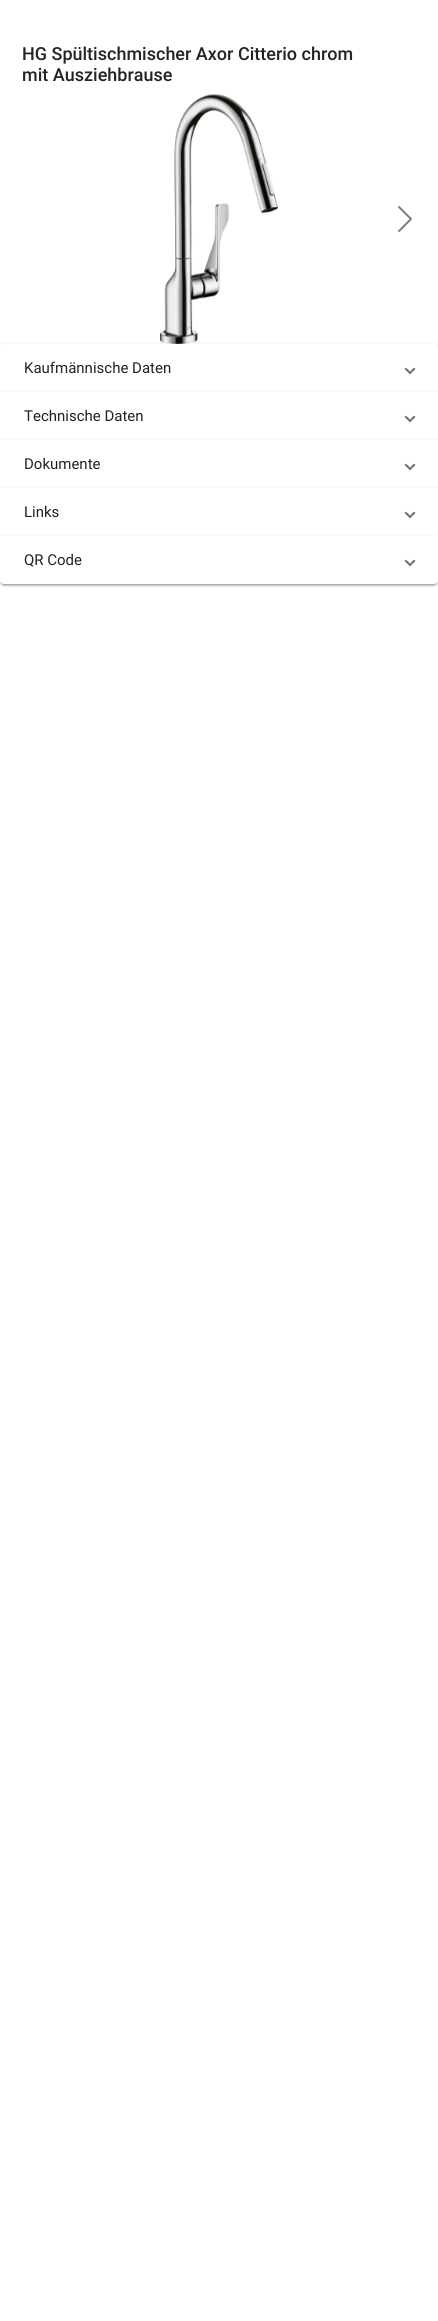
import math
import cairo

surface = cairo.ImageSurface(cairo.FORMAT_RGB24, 438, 2321)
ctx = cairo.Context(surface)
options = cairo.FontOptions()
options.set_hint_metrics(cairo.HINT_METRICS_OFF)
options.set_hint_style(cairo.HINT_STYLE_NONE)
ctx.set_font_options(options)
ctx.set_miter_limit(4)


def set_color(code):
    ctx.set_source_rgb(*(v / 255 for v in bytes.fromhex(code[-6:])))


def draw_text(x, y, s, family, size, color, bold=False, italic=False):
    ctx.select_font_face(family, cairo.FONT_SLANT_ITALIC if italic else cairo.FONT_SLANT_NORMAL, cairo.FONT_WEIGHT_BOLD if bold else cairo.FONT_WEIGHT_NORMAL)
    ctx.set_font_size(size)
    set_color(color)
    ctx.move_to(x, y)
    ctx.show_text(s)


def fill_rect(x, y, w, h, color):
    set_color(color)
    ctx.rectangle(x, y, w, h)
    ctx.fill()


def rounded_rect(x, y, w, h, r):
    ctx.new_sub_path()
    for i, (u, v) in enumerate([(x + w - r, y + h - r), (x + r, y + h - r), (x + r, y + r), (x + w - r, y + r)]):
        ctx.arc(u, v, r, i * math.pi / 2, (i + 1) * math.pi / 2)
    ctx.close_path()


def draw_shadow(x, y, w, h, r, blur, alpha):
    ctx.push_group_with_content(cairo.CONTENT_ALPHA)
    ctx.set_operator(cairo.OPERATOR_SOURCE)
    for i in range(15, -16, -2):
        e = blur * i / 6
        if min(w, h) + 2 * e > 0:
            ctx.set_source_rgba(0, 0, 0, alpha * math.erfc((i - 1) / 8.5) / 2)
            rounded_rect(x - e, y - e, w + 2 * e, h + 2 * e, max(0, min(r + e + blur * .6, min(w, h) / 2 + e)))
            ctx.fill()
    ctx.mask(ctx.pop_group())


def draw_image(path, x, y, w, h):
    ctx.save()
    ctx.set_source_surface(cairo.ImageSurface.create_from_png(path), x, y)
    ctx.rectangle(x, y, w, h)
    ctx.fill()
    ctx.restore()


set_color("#ffffff")
ctx.paint()
draw_text(22, 60, "HG Spültischmischer Axor Citterio chrom", "Roboto Medium", 18, "#212529")
draw_text(22, 81, "mit Ausziehbrause", "Roboto Medium", 18, "#212529")
draw_image("assets/img1.png", 160, 94, 118, 250)
draw_image("assets/img2.png", 398, 206, 14, 26)
set_color("#000000")
draw_shadow(0, 345, 438, 48, 4, 2.5, 0.12)
set_color("#ffffff")
ctx.new_path()
ctx.move_to(4, 344)
ctx.line_to(434, 344)
ctx.curve_to(436, 344, 438, 346, 438, 348)
ctx.line_to(438, 392)
ctx.line_to(0, 392)
ctx.line_to(0, 348)
ctx.curve_to(0, 346, 2, 344, 4, 344)
ctx.close_path()
ctx.fill()
draw_text(24, 373, "Kaufmännische Daten", "Roboto", 15, "#212121")
set_color("#757575")
ctx.new_path()
ctx.move_to(415.5, 369)
ctx.line_to(410, 374.5)
ctx.line_to(410, 371.5)
ctx.line_to(414, 367.5)
ctx.close_path()
ctx.move_to(410, 374.5)
ctx.line_to(404.5, 369)
ctx.line_to(406, 367.5)
ctx.line_to(410, 371.5)
ctx.close_path()
ctx.fill()
set_color("#000000")
draw_shadow(0, 393, 438, 48, 0, 2.5, 0.12)
fill_rect(0, 392, 438, 48, "#ffffff")
draw_text(24, 421, "Technische Daten", "Roboto", 15, "#212121")
set_color("#757575")
ctx.new_path()
ctx.move_to(415.5, 417)
ctx.line_to(410, 422.5)
ctx.line_to(410, 419.5)
ctx.line_to(414, 415.5)
ctx.close_path()
ctx.move_to(410, 422.5)
ctx.line_to(404.5, 417)
ctx.line_to(406, 415.5)
ctx.line_to(410, 419.5)
ctx.close_path()
ctx.fill()
set_color("#000000")
draw_shadow(0, 441, 438, 48, 0, 2.5, 0.12)
fill_rect(0, 440, 438, 48, "#ffffff")
draw_text(24, 469, "Dokumente", "Roboto", 15, "#212121")
set_color("#757575")
ctx.new_path()
ctx.move_to(415.5, 465)
ctx.line_to(410, 470.5)
ctx.line_to(410, 467.5)
ctx.line_to(414, 463.5)
ctx.close_path()
ctx.move_to(410, 470.5)
ctx.line_to(404.5, 465)
ctx.line_to(406, 463.5)
ctx.line_to(410, 467.5)
ctx.close_path()
ctx.fill()
set_color("#000000")
draw_shadow(0, 489, 438, 48, 0, 2.5, 0.12)
fill_rect(0, 488, 438, 48, "#ffffff")
draw_text(24, 517, "Links", "Roboto", 15, "#212121")
set_color("#757575")
ctx.new_path()
ctx.move_to(415.5, 513)
ctx.line_to(410, 518.5)
ctx.line_to(410, 515.5)
ctx.line_to(414, 511.5)
ctx.close_path()
ctx.move_to(410, 518.5)
ctx.line_to(404.5, 513)
ctx.line_to(406, 511.5)
ctx.line_to(410, 515.5)
ctx.close_path()
ctx.fill()
set_color("#000000")
draw_shadow(0, 537, 438, 48, 4, 2.5, 0.12)
draw_shadow(0, 538, 438, 48, 4, 1, 0.14)
draw_shadow(2, 541, 434, 44, 2, 0.5, 0.2)
set_color("#ffffff")
ctx.new_path()
ctx.move_to(0, 536)
ctx.line_to(438, 536)
ctx.line_to(438, 580)
ctx.curve_to(438, 582, 436, 584, 434, 584)
ctx.line_to(4, 584)
ctx.curve_to(2, 584, 0, 582, 0, 580)
ctx.close_path()
ctx.fill()
draw_text(24, 565, "QR Code", "Roboto", 15, "#212121")
set_color("#757575")
ctx.new_path()
ctx.move_to(415.5, 561)
ctx.line_to(410, 566.5)
ctx.line_to(410, 563.5)
ctx.line_to(414, 559.5)
ctx.close_path()
ctx.move_to(410, 566.5)
ctx.line_to(404.5, 561)
ctx.line_to(406, 559.5)
ctx.line_to(410, 563.5)
ctx.close_path()
ctx.fill()
surface.write_to_png("output.png")
